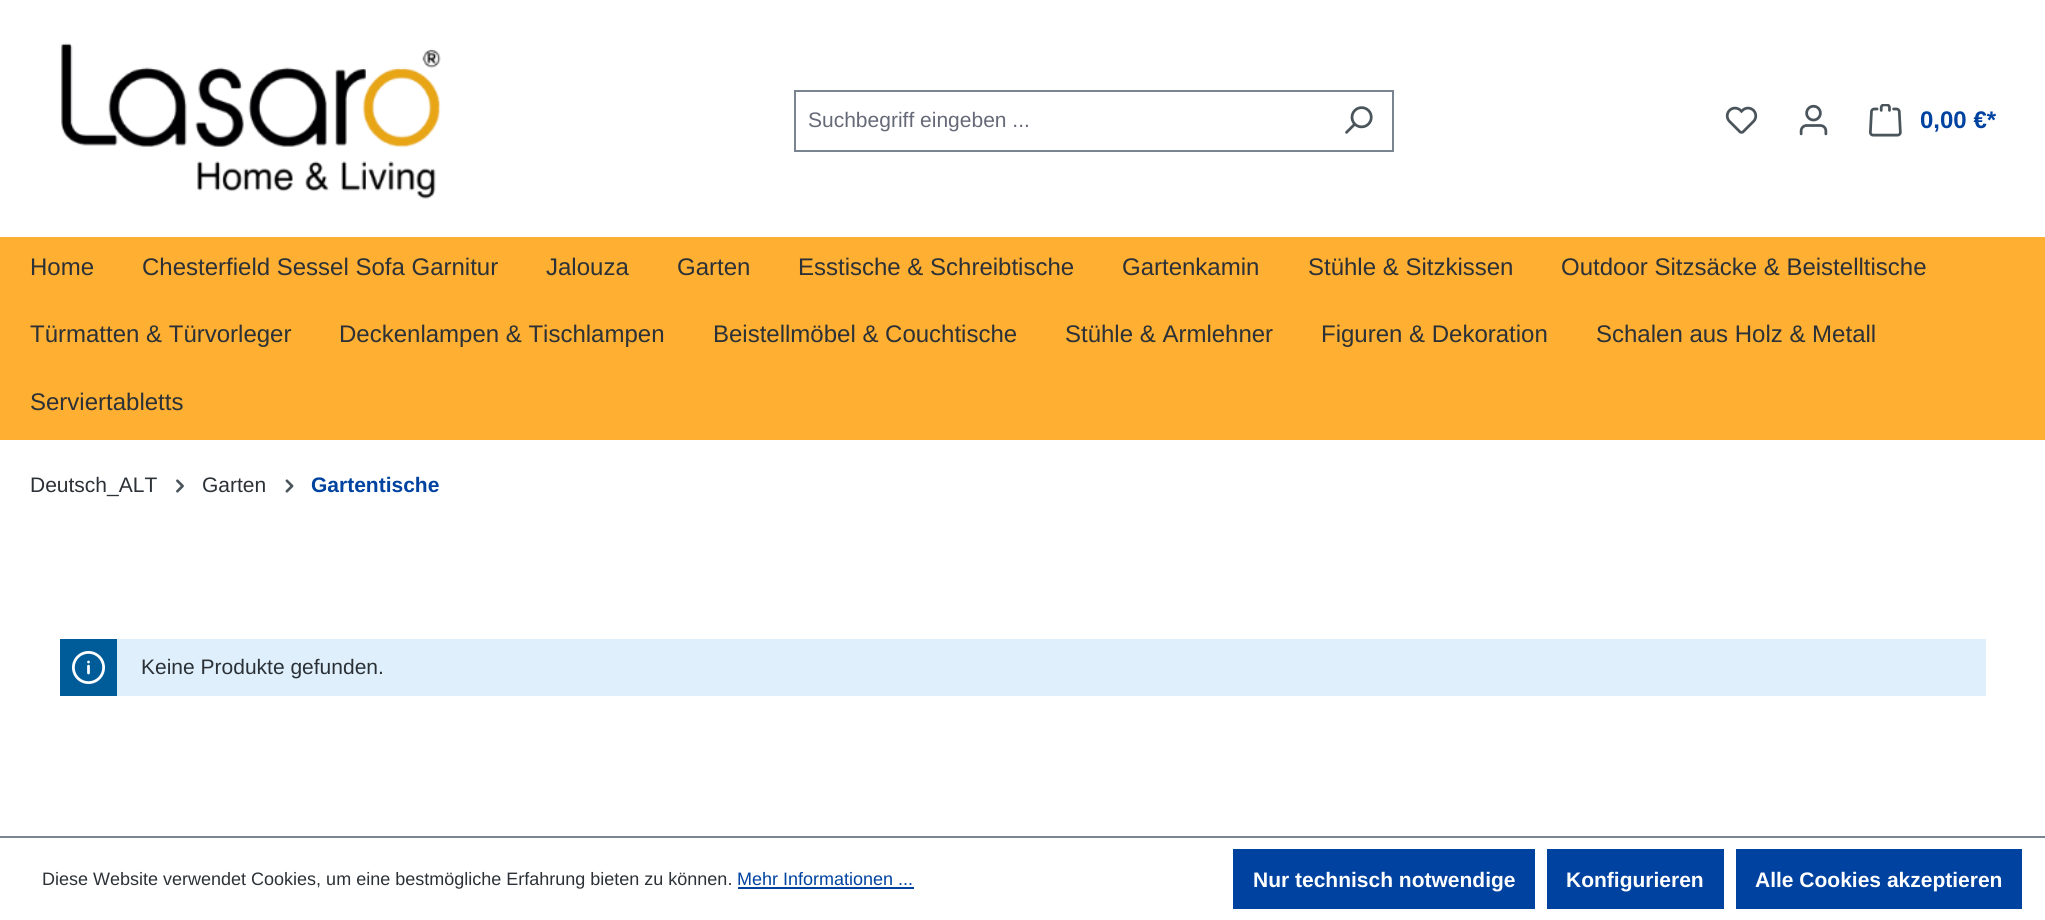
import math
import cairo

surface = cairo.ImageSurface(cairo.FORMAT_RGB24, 2045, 920)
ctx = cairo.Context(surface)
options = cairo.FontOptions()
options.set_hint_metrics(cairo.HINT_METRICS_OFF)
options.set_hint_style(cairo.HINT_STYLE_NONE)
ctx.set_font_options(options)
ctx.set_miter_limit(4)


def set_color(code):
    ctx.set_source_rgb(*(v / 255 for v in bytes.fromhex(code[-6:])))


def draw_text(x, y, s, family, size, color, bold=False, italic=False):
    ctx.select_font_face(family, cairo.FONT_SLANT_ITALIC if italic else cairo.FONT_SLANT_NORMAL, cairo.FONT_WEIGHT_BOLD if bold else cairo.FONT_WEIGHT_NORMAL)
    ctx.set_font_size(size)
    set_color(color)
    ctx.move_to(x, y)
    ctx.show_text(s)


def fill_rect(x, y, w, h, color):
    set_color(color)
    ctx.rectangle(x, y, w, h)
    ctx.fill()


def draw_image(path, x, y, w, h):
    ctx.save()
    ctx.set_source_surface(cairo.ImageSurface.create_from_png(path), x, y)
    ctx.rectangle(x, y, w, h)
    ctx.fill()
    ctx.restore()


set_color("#ffffff")
ctx.paint()
draw_image("assets/img1.png", 61, 43, 380, 156)
fill_rect(794, 90, 600, 2, "#798490")
fill_rect(794, 150, 531, 2, "#798490")
fill_rect(794, 90, 2, 62, "#798490")
draw_text(808, 127, "Suchbegriff eingeben ...", "Liberation Sans", 21, "#666977")
fill_rect(1392, 90, 2, 62, "#798490")
fill_rect(1323, 150, 71, 2, "#798490")
draw_image("assets/img2.png", 1345, 106, 28, 28)
draw_image("assets/img3.png", 1725, 106, 33, 28)
draw_image("assets/img4.png", 1799, 104, 29, 32)
draw_image("assets/img5.png", 1869, 104, 33, 33)
draw_text(1920, 128, "0,00 €*", "Liberation Sans", 24, "#0042a0", bold=True)
fill_rect(0, 237, 2045, 203, "#ffaf31")
draw_text(30, 275, "Home", "Liberation Sans", 24, "#2b3136")
draw_text(142, 275, "Chesterfield Sessel Sofa Garnitur", "Liberation Sans", 24, "#2b3136")
draw_text(546, 275, "Jalouza", "Liberation Sans", 24, "#2b3136")
draw_text(677, 275, "Garten", "Liberation Sans", 24, "#2b3136")
draw_text(798, 275, "Esstische & Schreibtische", "Liberation Sans", 24, "#2b3136")
draw_text(1122, 275, "Gartenkamin", "Liberation Sans", 24, "#2b3136")
draw_text(1308, 275, "Stühle & Sitzkissen", "Liberation Sans", 24, "#2b3136")
draw_text(1561, 275, "Outdoor Sitzsäcke & Beistelltische", "Liberation Sans", 24, "#2b3136")
draw_text(30, 342, "Türmatten & Türvorleger", "Liberation Sans", 24, "#2b3136")
draw_text(339, 342, "Deckenlampen & Tischlampen", "Liberation Sans", 24, "#2b3136")
draw_text(713, 342, "Beistellmöbel & Couchtische", "Liberation Sans", 24, "#2b3136")
draw_text(1065, 342, "Stühle & Armlehner", "Liberation Sans", 24, "#2b3136")
draw_text(1321, 342, "Figuren & Dekoration", "Liberation Sans", 24, "#2b3136")
draw_text(1596, 342, "Schalen aus Holz & Metall", "Liberation Sans", 24, "#2b3136")
draw_text(30, 410, "Serviertabletts", "Liberation Sans", 24, "#2b3136")
draw_text(30, 492, "Deutsch_ALT", "Liberation Sans", 21, "#2b3136")
draw_image("assets/img6.png", 176, 479, 8, 14)
draw_text(202, 492, "Garten", "Liberation Sans", 21, "#2b3136")
draw_image("assets/img7.png", 285, 479, 9, 14)
draw_text(311, 492, "Gartentische", "Liberation Sans", 21, "#0042a0", bold=True)
fill_rect(60, 639, 57, 57, "#005b99")
draw_image("assets/img8.png", 72, 651, 33, 33)
fill_rect(117, 639, 1869, 57, "#dff0fc")
draw_text(141, 674, "Keine Produkte gefunden.", "Liberation Sans", 21, "#2b3136")
fill_rect(0, 836, 2045, 2, "#798490")
draw_text(42, 885, "Diese Website verwendet Cookies, um eine bestmögliche Erfahrung bieten zu können.", "Liberation Sans", 18, "#2b3136")
draw_text(737, 885, "Mehr Informationen ...", "Liberation Sans", 18, "#0042a0")
fill_rect(738, 887, 176, 2, "#0042a0")
fill_rect(1233, 849, 302, 60, "#0042a0")
draw_text(1253, 887, "Nur technisch notwendige", "Liberation Sans", 21, "#ffffff", bold=True)
fill_rect(1547, 849, 177, 60, "#0042a0")
draw_text(1566, 887, "Konfigurieren", "Liberation Sans", 21, "#ffffff", bold=True)
fill_rect(1736, 849, 286, 60, "#0042a0")
draw_text(1755, 887, "Alle Cookies akzeptieren", "Liberation Sans", 21, "#ffffff", bold=True)
surface.write_to_png("output.png")
